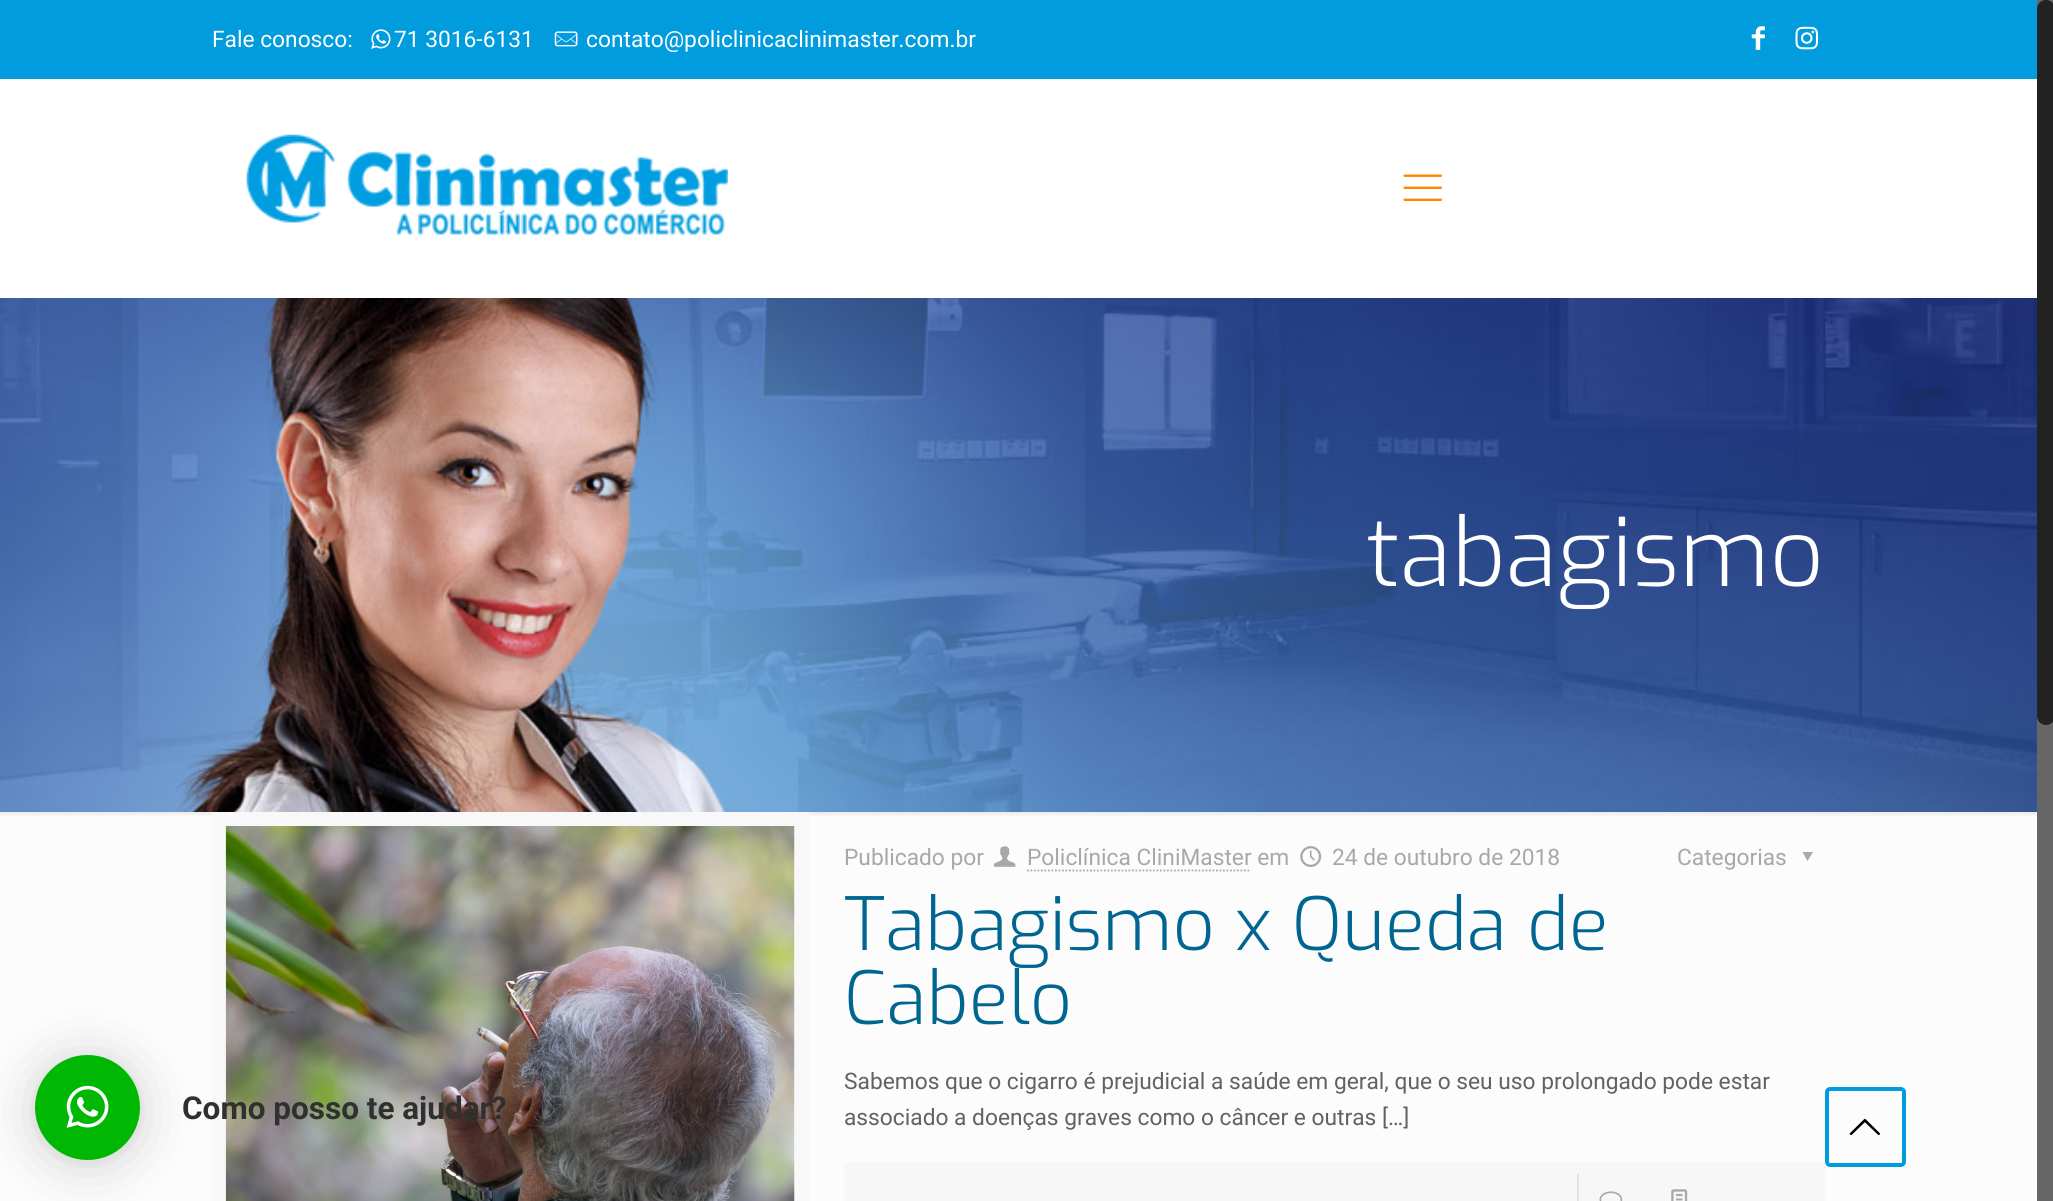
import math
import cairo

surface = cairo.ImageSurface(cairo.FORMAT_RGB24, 2053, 1201)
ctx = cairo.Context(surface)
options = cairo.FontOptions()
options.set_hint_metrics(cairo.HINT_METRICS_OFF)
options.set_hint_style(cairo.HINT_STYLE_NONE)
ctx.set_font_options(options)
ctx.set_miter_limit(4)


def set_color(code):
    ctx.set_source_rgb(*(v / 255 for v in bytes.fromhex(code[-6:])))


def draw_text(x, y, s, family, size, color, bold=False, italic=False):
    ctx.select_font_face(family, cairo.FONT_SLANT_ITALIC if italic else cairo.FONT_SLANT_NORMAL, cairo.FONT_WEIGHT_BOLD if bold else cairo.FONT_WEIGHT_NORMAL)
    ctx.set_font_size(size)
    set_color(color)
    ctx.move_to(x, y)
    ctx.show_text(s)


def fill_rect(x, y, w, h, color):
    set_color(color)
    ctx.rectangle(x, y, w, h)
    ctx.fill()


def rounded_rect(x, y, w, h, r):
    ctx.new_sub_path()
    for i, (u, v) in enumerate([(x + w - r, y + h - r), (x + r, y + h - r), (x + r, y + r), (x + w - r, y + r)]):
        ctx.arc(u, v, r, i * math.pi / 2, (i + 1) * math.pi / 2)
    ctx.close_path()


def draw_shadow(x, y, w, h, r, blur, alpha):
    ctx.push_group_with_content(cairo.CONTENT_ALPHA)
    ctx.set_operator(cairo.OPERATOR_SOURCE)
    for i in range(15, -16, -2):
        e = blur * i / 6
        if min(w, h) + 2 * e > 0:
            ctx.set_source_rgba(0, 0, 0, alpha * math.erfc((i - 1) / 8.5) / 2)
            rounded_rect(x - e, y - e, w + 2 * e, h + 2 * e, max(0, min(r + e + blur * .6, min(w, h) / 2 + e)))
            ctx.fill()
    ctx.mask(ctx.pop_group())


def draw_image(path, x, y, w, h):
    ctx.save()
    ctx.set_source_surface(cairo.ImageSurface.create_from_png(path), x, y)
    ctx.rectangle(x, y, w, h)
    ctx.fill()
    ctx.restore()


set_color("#fcfcfc")
ctx.paint()
draw_image("assets/img1.png", 0, 298, 2037, 514)
fill_rect(0, 0, 2037, 79, "#009cde")
draw_text(212, 47, "Fale conosco:", "Roboto", 22.75, "#ffffff")
draw_image("assets/img2.png", 371, 29, 20, 20)
draw_text(394, 47, "71 3016-6131", "Roboto", 22.75, "#ffffff")
draw_image("assets/img3.png", 554, 31, 24, 16)
draw_text(586, 47, "contato@policlinicaclinimaster.com.br", "Roboto", 22.75, "#ffffff")
draw_image("assets/img4.png", 1751, 26, 14, 24)
draw_image("assets/img5.png", 1795, 26, 23, 24)
fill_rect(0, 79, 2037, 219, "#ffffff")
draw_image("assets/img6.png", 246, 134, 482, 101)
draw_image("assets/img7.png", 1403, 174, 39, 27)
draw_text(1366, 586, "tabagismo", "Exo Light", 94.5, "#ffffff")
draw_image("assets/img8.png", 0, 812, 2037, 4)
ctx.rectangle(219, 819, 583, 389)
set_color("#f8f8f8")
ctx.set_line_width(14)
ctx.stroke()
draw_image("assets/img9.png", 225, 826, 570, 375)
draw_text(844, 865, "Publicado por", "Roboto", 22.75, "#a8a8a8")
draw_image("assets/img10.png", 994, 846, 22, 21)
draw_text(1027, 865, "Policlínica CliniMaster em", "Roboto", 22.75, "#a8a8a8")
ctx.new_path()
ctx.move_to(1027, 870.5)
ctx.line_to(1251, 870.5)
ctx.set_line_width(1.8)
ctx.set_dash([1.75, 1.75])
ctx.stroke()
draw_image("assets/img11.png", 1300, 846, 22, 21)
draw_text(1332, 865, "24 de outubro de 2018", "Roboto", 22.75, "#a8a8a8")
draw_text(1677, 865, "Categorias", "Roboto", 22.75, "#a8a8a8")
ctx.new_path()
ctx.move_to(1813, 852)
ctx.line_to(1807.5, 861)
ctx.line_to(1802.5, 852)
ctx.close_path()
ctx.fill()
draw_text(844, 950, "Tabagismo x Queda de", "Exo Light", 73.5, "#006590")
draw_text(844, 1024, "Cabelo", "Exo Light", 73.5, "#006590")
draw_text(844, 1089, "Sabemos que o cigarro é prejudicial a saúde em geral, que o seu uso prolongado pode estar", "Roboto", 22.75, "#626262")
draw_text(844, 1125, "associado a doenças graves como o câncer e outras […]", "Roboto", 22.75, "#626262")
fill_rect(844, 1162, 981, 39, "#f7f7f7")
fill_rect(1577, 1174, 2, 27, "#e3e3e3")
draw_image("assets/img12.png", 1599, 1191, 24, 10)
draw_image("assets/img13.png", 1671, 1189, 17, 12)
rounded_rect(1827, 1089, 77, 76, 3)
set_color("#009cde")
ctx.set_line_width(4)
ctx.set_dash([])
ctx.stroke()
draw_image("assets/img14.png", 1849, 1118, 31, 18)
fill_rect(2037, 0, 16, 1201, "#666666")
set_color("#222222")
rounded_rect(2037, 0, 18, 725, 9)
ctx.fill()
set_color("#000000")
draw_shadow(35, 1059, 105, 105, 52.5, 28, 0.16)
draw_shadow(35, 1057, 105, 105, 52.5, 5, 0.06)
set_color("#00b703")
ctx.arc(87.5, 1107.5, 52.5, 0, 2 * math.pi)
ctx.fill()
draw_image("assets/img15.png", 66, 1085, 43, 43)
draw_text(182, 1119, "Como posso te ajudar?", "Roboto", 31.5, "#303030", bold=True)
surface.write_to_png("output.png")
